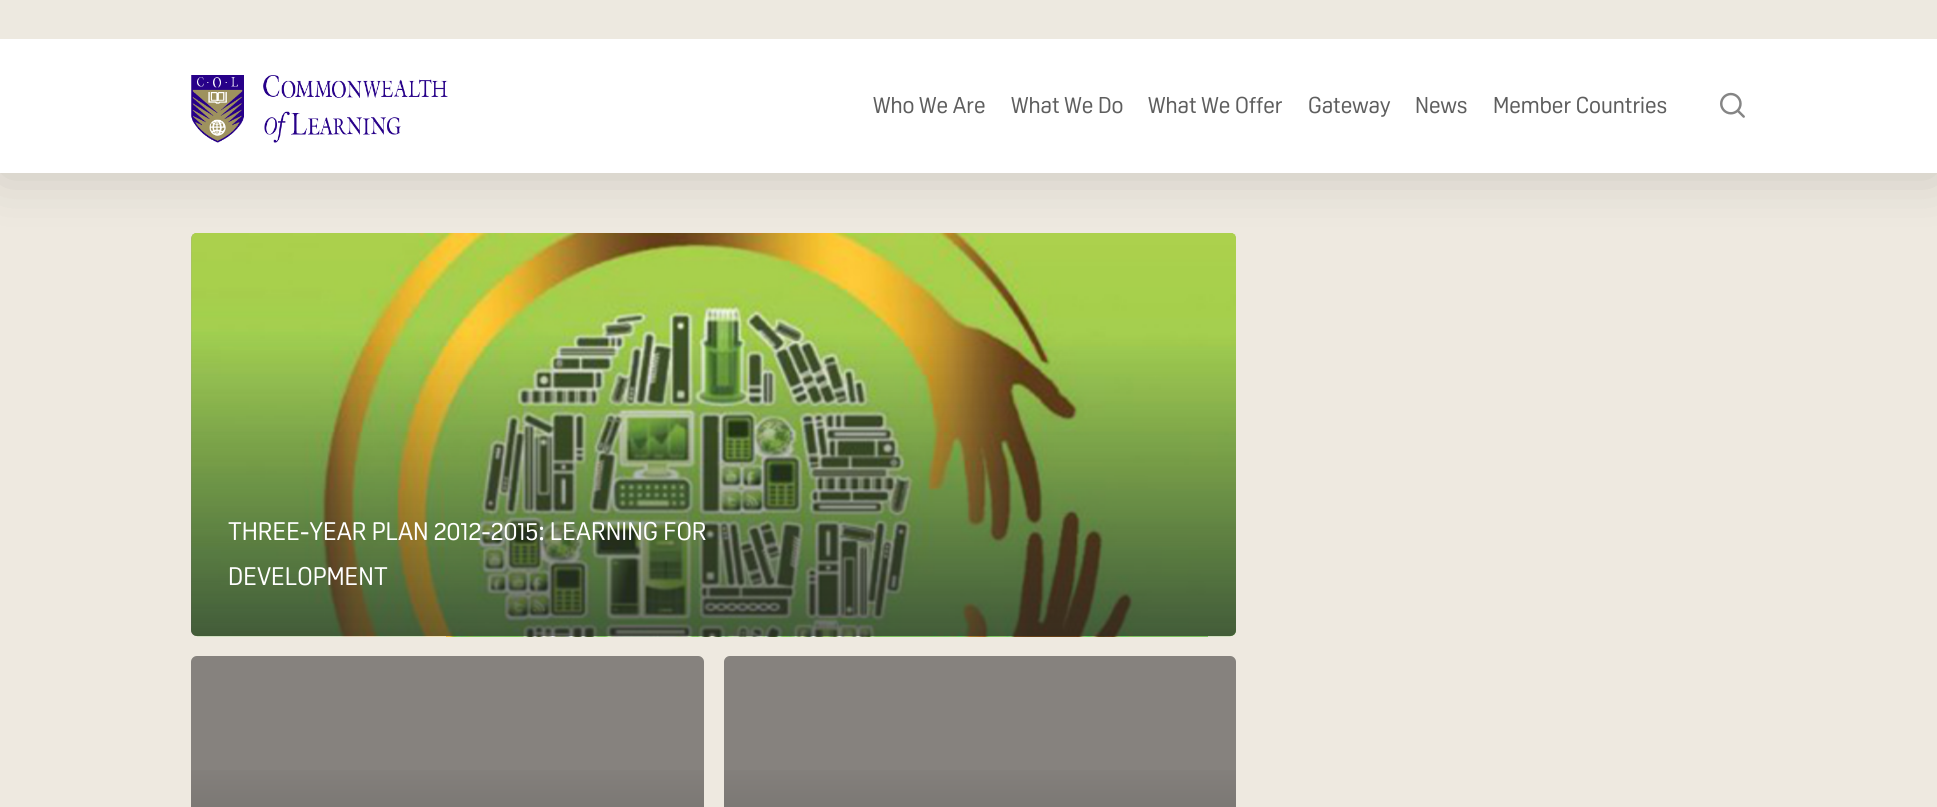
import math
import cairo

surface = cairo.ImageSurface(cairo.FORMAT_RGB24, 1937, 807)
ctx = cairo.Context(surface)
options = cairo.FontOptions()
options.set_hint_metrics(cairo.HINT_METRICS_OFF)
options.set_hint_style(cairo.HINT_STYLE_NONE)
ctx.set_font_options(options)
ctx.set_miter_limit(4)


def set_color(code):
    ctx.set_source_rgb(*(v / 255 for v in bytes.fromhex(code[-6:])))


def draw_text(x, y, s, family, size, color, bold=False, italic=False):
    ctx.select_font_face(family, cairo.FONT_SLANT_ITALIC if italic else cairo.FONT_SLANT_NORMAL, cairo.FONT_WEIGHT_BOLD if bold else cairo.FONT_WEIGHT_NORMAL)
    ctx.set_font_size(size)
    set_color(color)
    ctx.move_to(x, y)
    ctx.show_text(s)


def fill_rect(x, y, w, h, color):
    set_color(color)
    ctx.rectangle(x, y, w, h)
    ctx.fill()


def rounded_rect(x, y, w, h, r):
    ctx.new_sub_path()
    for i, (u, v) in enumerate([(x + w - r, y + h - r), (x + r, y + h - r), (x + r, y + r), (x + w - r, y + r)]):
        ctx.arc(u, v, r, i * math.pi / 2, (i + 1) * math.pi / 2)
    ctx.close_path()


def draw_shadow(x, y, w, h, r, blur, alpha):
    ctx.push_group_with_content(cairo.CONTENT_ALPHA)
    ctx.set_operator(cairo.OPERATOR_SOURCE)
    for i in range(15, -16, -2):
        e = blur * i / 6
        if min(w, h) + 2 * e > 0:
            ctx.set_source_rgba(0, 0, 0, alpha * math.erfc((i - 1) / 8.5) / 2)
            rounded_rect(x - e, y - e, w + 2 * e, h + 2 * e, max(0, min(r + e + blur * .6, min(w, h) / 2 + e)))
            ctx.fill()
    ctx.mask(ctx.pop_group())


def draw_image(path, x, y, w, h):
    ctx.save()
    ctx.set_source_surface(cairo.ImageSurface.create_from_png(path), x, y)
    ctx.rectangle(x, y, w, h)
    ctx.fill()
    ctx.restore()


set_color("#eee9e0")
ctx.paint()
set_color("#a8a39d")
rounded_rect(191, 233, 1045, 403, 6)
ctx.fill()
draw_image("assets/img3.png", 191, 233, 1045, 404)
set_color("#000000")
draw_shadow(0, 41, 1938, 135, 0, 28, 0.15)
fill_rect(0, 39, 1937, 134, "#ffffff")
fill_rect(0, 0, 1937, 39, "#ede9e0")
draw_image("assets/img1.png", 191, 75, 257, 68)
draw_text(873, 113, "Who We Are", "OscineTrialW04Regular", 22.5, "#5e5e5e")
draw_text(1011, 113, "What We Do", "OscineTrialW04Regular", 22.5, "#5e5e5e")
draw_text(1148, 113, "What We Offer", "OscineTrialW04Regular", 22.5, "#5e5e5e")
draw_text(1308, 113, "Gateway", "OscineTrialW04Regular", 22.5, "#5e5e5e")
draw_text(1415, 113, "News", "OscineTrialW04Regular", 22.5, "#5e5e5e")
draw_text(1493, 113, "Member Countries", "OscineTrialW04Regular", 22.5, "#5e5e5e")
draw_image("assets/img2.png", 1720, 92, 25, 26)
gradient = cairo.LinearGradient(716, 334, 716, 639)
gradient.add_color_stop_rgba(0, 0.137, 0.137, 0.137, 0)
gradient.add_color_stop_rgba(1, 0.137, 0.137, 0.137, 0.65)
ctx.set_source(gradient)
ctx.new_path()
ctx.move_to(191, 334)
ctx.line_to(1236, 334)
ctx.line_to(1236, 630)
ctx.curve_to(1236, 633.5, 1233.5, 636, 1230, 636)
ctx.line_to(197, 636)
ctx.curve_to(193.5, 636, 191, 633.5, 191, 630)
ctx.close_path()
ctx.fill()
draw_text(228, 540, "THREE-YEAR PLAN 2012-2015: LEARNING FOR", "OscineTrialW04Regular", 25, "#ffffff")
draw_text(228, 585, "DEVELOPMENT", "OscineTrialW04Regular", 25, "#ffffff")
set_color("#a7a39d")
rounded_rect(191, 656, 513, 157, 6)
ctx.fill()
ctx.set_source_rgba(0, 0, 0, 0.2)
rounded_rect(191, 656, 513, 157, 6)
ctx.fill()
gradient = cairo.LinearGradient(449, 758, 449, 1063)
gradient.add_color_stop_rgba(0, 0.525, 0.51, 0.494, 1)
gradient.add_color_stop_rgba(1, 0.275, 0.267, 0.263, 1)
ctx.set_source(gradient)
ctx.rectangle(191, 770, 513, 37)
ctx.fill()
set_color("#a7a39d")
rounded_rect(724, 656, 512, 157, 6)
ctx.fill()
ctx.set_source_rgba(0, 0, 0, 0.2)
rounded_rect(724, 656, 512, 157, 6)
ctx.fill()
gradient = cairo.LinearGradient(981, 758, 981, 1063)
gradient.add_color_stop_rgba(0, 0.525, 0.51, 0.494, 1)
gradient.add_color_stop_rgba(1, 0.275, 0.267, 0.263, 1)
ctx.set_source(gradient)
ctx.rectangle(724, 770, 512, 37)
ctx.fill()
surface.write_to_png("output.png")
